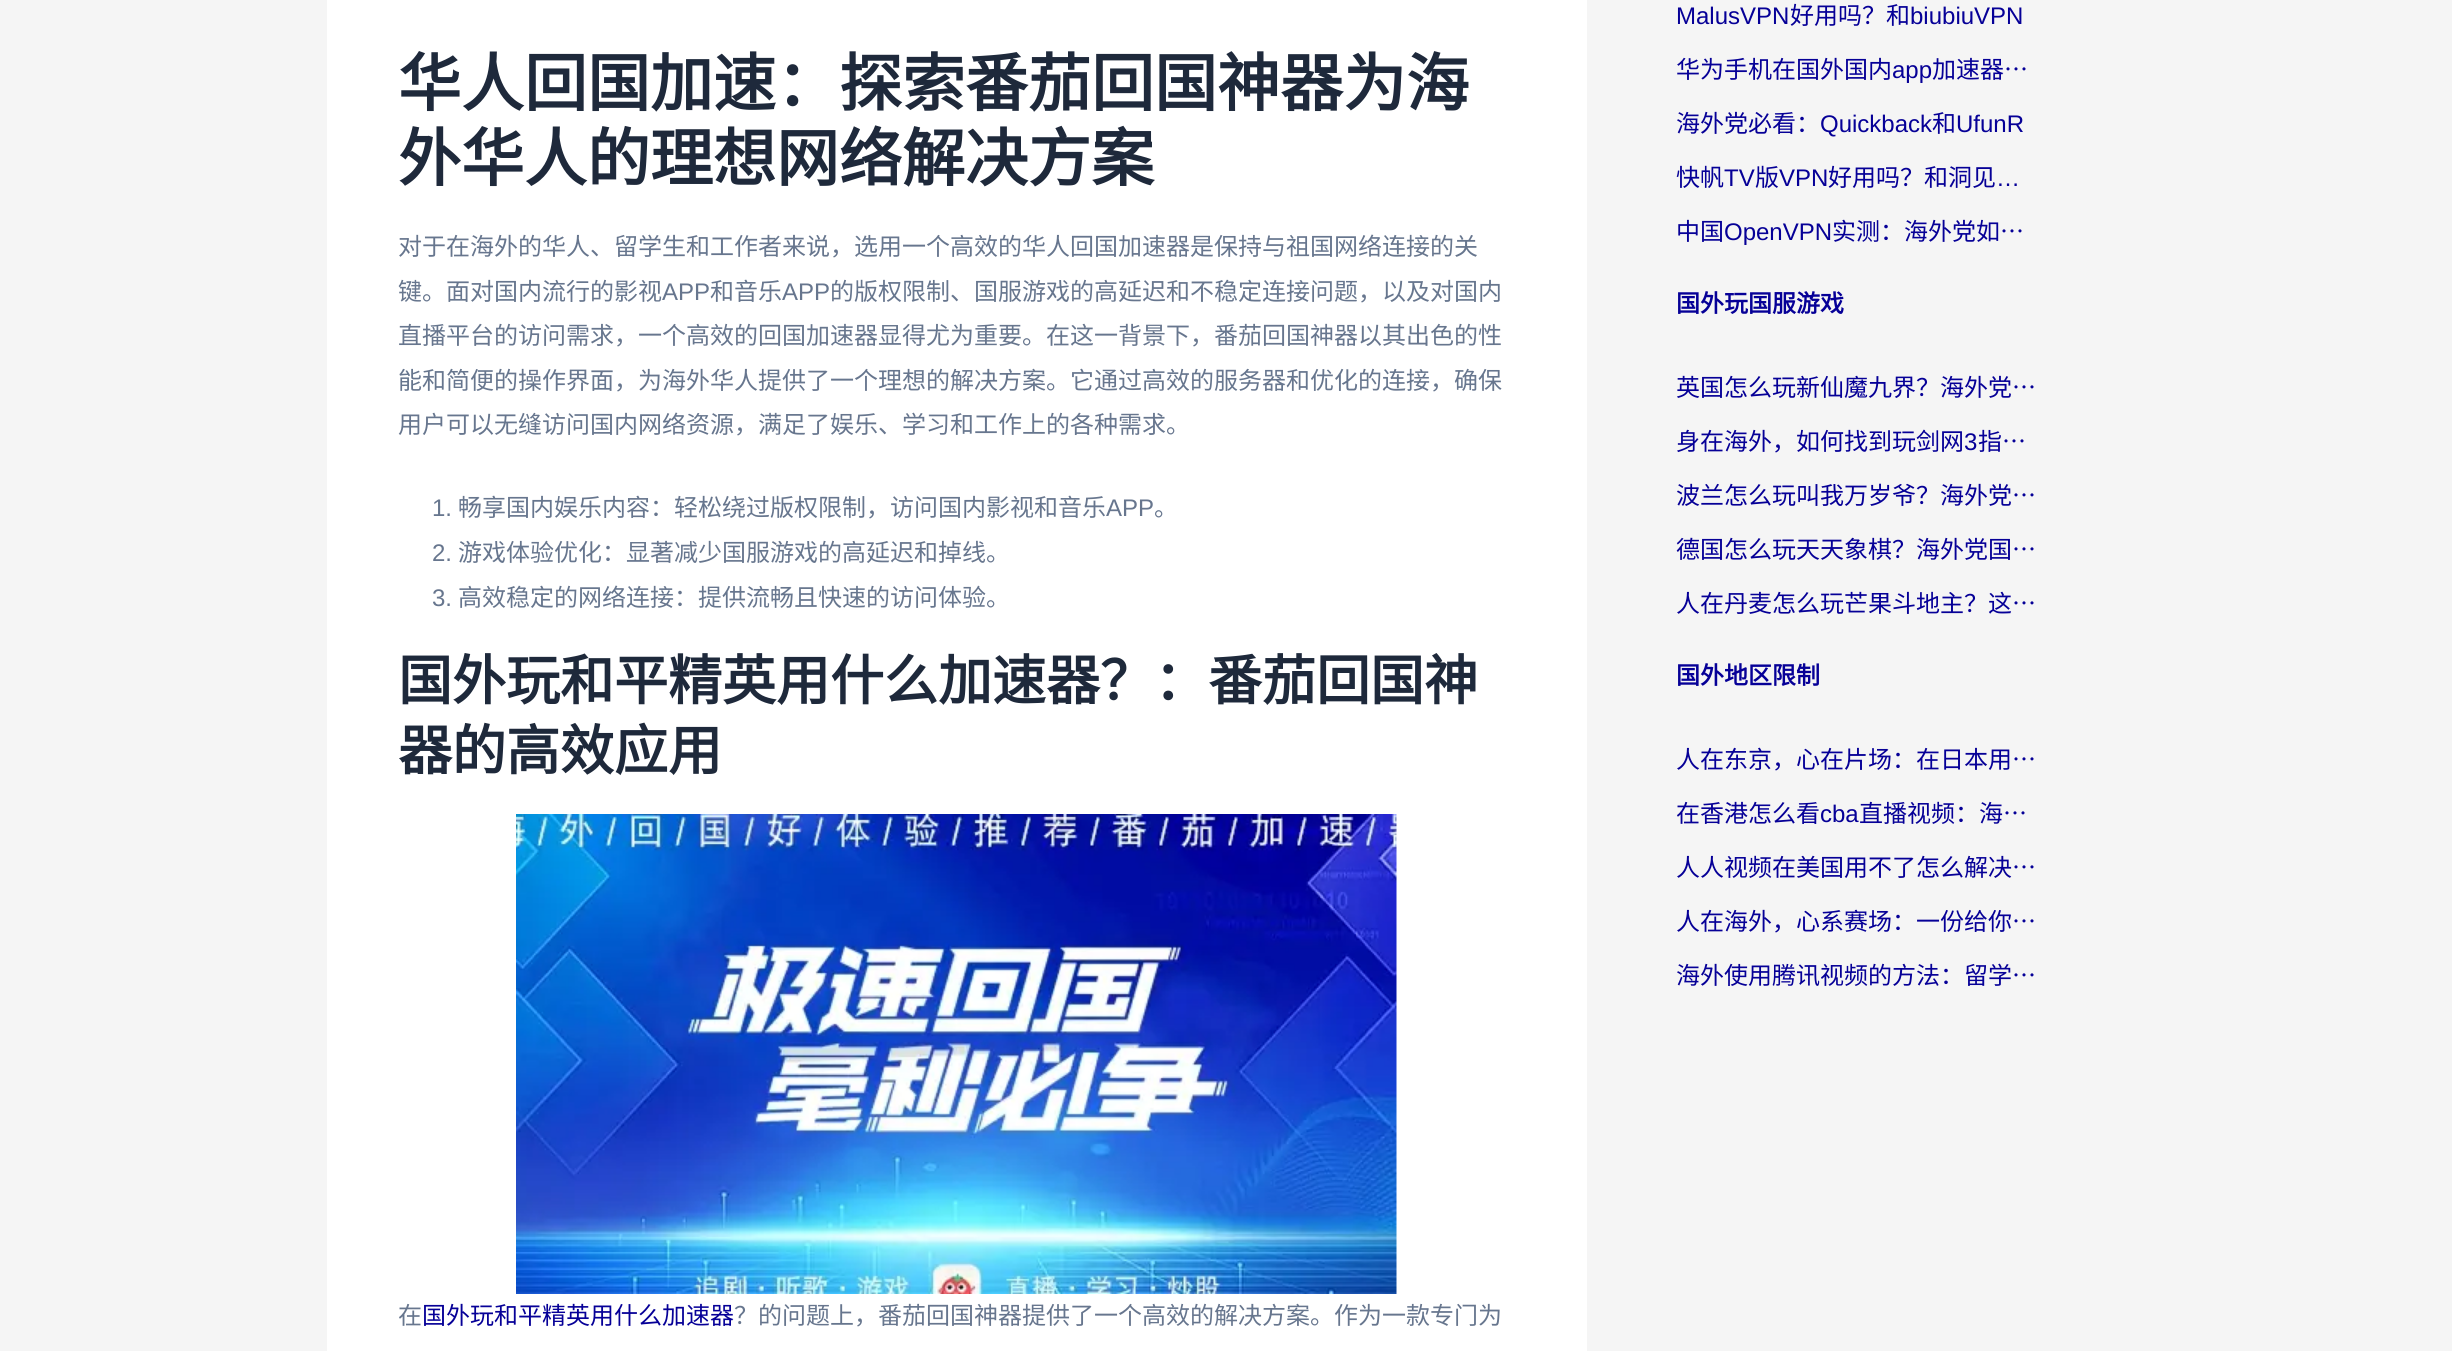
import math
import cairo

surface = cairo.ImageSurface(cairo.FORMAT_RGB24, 2452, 1351)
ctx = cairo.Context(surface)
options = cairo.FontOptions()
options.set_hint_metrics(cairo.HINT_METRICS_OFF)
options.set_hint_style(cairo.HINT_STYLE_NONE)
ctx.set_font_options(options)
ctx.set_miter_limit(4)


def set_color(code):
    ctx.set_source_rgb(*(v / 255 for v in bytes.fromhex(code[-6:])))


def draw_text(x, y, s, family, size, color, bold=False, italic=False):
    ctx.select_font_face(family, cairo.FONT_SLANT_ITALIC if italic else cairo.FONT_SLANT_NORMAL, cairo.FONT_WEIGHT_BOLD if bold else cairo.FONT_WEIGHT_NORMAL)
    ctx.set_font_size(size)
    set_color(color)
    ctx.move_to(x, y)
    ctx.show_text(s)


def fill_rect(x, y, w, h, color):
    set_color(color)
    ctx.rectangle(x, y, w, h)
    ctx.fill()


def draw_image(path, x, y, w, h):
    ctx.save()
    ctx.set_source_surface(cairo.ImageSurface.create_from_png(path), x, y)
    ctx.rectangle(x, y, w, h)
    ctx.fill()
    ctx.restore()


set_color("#f5f5f5")
ctx.paint()
fill_rect(327, 0, 1260, 1351, "#ffffff")
draw_text(398, 106, "华人回国加速：探索番茄回国神器为海", "Noto Sans CJK SC", 63, "#1e293b", bold=True)
draw_text(398, 181, "外华人的理想网络解决方案", "Noto Sans CJK SC", 63, "#1e293b", bold=True)
draw_text(398, 255, "对于在海外的华人、留学生和工作者来说，选用一个高效的华人回国加速器是保持与祖国网络连接的关", "Noto Sans CJK SC", 24, "#67768e")
draw_text(398, 300, "键。面对国内流行的影视", "Noto Sans CJK SC", 24, "#67768e")
draw_text(662, 300, "APP", "Liberation Sans", 24, "#67768e")
draw_text(710, 300, "和音乐", "Noto Sans CJK SC", 24, "#67768e")
draw_text(782, 300, "APP", "Liberation Sans", 24, "#67768e")
draw_text(830, 300, "的版权限制、国服游戏的高延迟和不稳定连接问题，以及对国内", "Noto Sans CJK SC", 24, "#67768e")
draw_text(398, 344, "直播平台的访问需求，一个高效的回国加速器显得尤为重要。在这一背景下，番茄回国神器以其出色的性", "Noto Sans CJK SC", 24, "#67768e")
draw_text(398, 389, "能和简便的操作界面，为海外华人提供了一个理想的解决方案。它通过高效的服务器和优化的连接，确保", "Noto Sans CJK SC", 24, "#67768e")
draw_text(398, 433, "用户可以无缝访问国内网络资源，满足了娱乐、学习和工作上的各种需求。", "Noto Sans CJK SC", 24, "#67768e")
draw_text(432, 516, "1.", "Liberation Sans", 24, "#67768e")
draw_text(458, 516, "畅享国内娱乐内容：轻松绕过版权限制，访问国内影视和音乐", "Noto Sans CJK SC", 24, "#67768e")
draw_text(1106, 516, "APP", "Liberation Sans", 24, "#67768e")
draw_text(1154, 516, "。", "Noto Sans CJK SC", 24, "#67768e")
draw_text(432, 561, "2.", "Liberation Sans", 24, "#67768e")
draw_text(458, 561, "游戏体验优化：显著减少国服游戏的高延迟和掉线。", "Noto Sans CJK SC", 24, "#67768e")
draw_text(432, 606, "3.", "Liberation Sans", 24, "#67768e")
draw_text(458, 606, "高效稳定的网络连接：提供流畅且快速的访问体验。", "Noto Sans CJK SC", 24, "#67768e")
draw_text(398, 700, "国外玩和平精英用什么加速器？：番茄回国神", "Noto Sans CJK SC", 54, "#1e293b", bold=True)
draw_text(398, 770, "器的高效应用", "Noto Sans CJK SC", 54, "#1e293b", bold=True)
draw_image("assets/img1.png", 516, 814, 881, 480)
draw_text(398, 1324, "在", "Noto Sans CJK SC", 24, "#67768e")
draw_text(422, 1324, "国外玩和平精英用什么加速器", "Noto Sans CJK SC", 24, "#060097")
draw_text(734, 1324, "？的问题上，番茄回国神器提供了一个高效的解决方案。作为一款专门为", "Noto Sans CJK SC", 24, "#67768e")
draw_text(1676, 24, "MalusVPN", "Liberation Sans", 24, "#060097")
draw_text(1790, 24, "好用吗？和", "Noto Sans CJK SC", 24, "#060097")
draw_text(1910, 24, "biubiuVPN", "Liberation Sans", 24, "#060097")
draw_text(1676, 78, "华为手机在国外国内", "Noto Sans CJK SC", 24, "#060097")
draw_text(1892, 78, "app", "Liberation Sans", 24, "#060097")
draw_text(1932, 78, "加速器…", "Noto Sans CJK SC", 24, "#060097")
draw_text(1676, 132, "海外党必看：", "Noto Sans CJK SC", 24, "#060097")
draw_text(1820, 132, "Quickback", "Liberation Sans", 24, "#060097")
draw_text(1932, 132, "和", "Noto Sans CJK SC", 24, "#060097")
draw_text(1956, 132, "UfunR", "Liberation Sans", 24, "#060097")
draw_text(1676, 186, "快帆", "Noto Sans CJK SC", 24, "#060097")
draw_text(1724, 186, "TV", "Liberation Sans", 24, "#060097")
draw_text(1755, 186, "版", "Noto Sans CJK SC", 24, "#060097")
draw_text(1779, 186, "VPN", "Liberation Sans", 24, "#060097")
draw_text(1828, 186, "好用吗？和洞见", "Noto Sans CJK SC", 24, "#060097")
draw_text(1996, 186, "…", "Liberation Sans", 24, "#060097")
draw_text(1676, 240, "中国", "Noto Sans CJK SC", 24, "#060097")
draw_text(1724, 240, "OpenVPN", "Liberation Sans", 24, "#060097")
draw_text(1832, 240, "实测：海外党如…", "Noto Sans CJK SC", 24, "#060097")
draw_text(1676, 312, "国外玩国服游戏", "Noto Sans CJK SC", 24, "#060097", bold=True)
draw_text(1676, 396, "英国怎么玩新仙魔九界？海外党…", "Noto Sans CJK SC", 24, "#060097")
draw_text(1676, 450, "身在海外，如何找到玩剑网", "Noto Sans CJK SC", 24, "#060097")
draw_text(1964, 450, "3", "Liberation Sans", 24, "#060097")
draw_text(1978, 450, "指…", "Noto Sans CJK SC", 24, "#060097")
draw_text(1676, 504, "波兰怎么玩叫我万岁爷？海外党…", "Noto Sans CJK SC", 24, "#060097")
draw_text(1676, 558, "德国怎么玩天天象棋？海外党国…", "Noto Sans CJK SC", 24, "#060097")
draw_text(1676, 612, "人在丹麦怎么玩芒果斗地主？这…", "Noto Sans CJK SC", 24, "#060097")
draw_text(1676, 684, "国外地区限制", "Noto Sans CJK SC", 24, "#060097", bold=True)
draw_text(1676, 768, "人在东京，心在片场：在日本用…", "Noto Sans CJK SC", 24, "#060097")
draw_text(1676, 822, "在香港怎么看", "Noto Sans CJK SC", 24, "#060097")
draw_text(1820, 822, "cba", "Liberation Sans", 24, "#060097")
draw_text(1859, 822, "直播视频：海…", "Noto Sans CJK SC", 24, "#060097")
draw_text(1676, 876, "人人视频在美国用不了怎么解决…", "Noto Sans CJK SC", 24, "#060097")
draw_text(1676, 930, "人在海外，心系赛场：一份给你…", "Noto Sans CJK SC", 24, "#060097")
draw_text(1676, 984, "海外使用腾讯视频的方法：留学…", "Noto Sans CJK SC", 24, "#060097")
surface.write_to_png("output.png")
